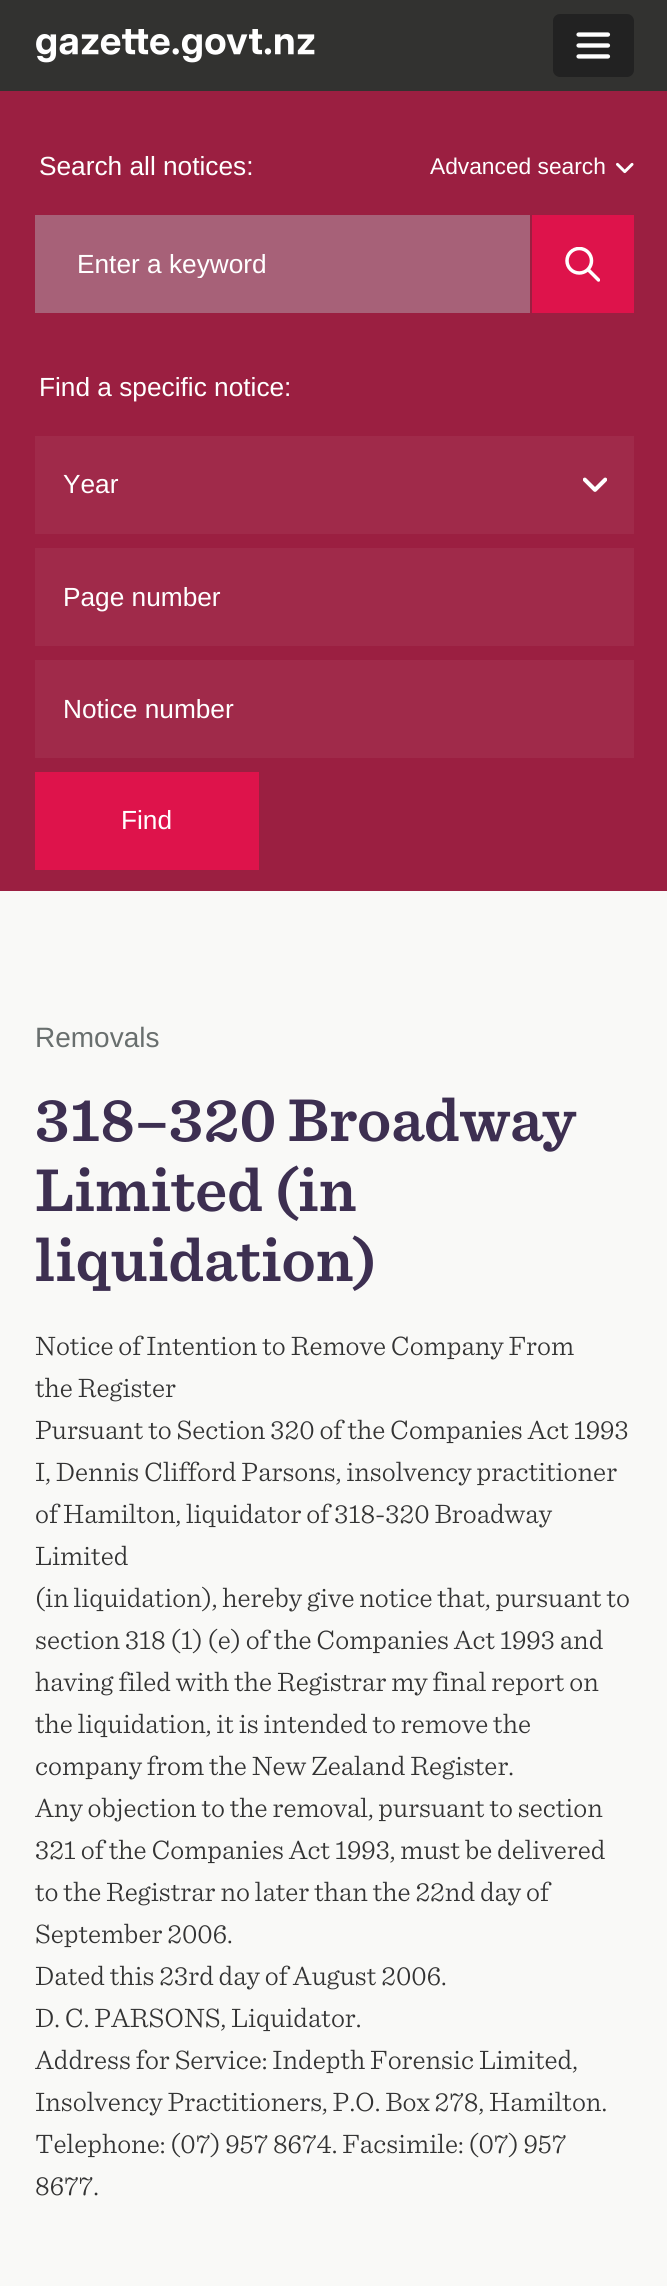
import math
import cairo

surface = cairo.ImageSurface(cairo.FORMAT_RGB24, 667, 2286)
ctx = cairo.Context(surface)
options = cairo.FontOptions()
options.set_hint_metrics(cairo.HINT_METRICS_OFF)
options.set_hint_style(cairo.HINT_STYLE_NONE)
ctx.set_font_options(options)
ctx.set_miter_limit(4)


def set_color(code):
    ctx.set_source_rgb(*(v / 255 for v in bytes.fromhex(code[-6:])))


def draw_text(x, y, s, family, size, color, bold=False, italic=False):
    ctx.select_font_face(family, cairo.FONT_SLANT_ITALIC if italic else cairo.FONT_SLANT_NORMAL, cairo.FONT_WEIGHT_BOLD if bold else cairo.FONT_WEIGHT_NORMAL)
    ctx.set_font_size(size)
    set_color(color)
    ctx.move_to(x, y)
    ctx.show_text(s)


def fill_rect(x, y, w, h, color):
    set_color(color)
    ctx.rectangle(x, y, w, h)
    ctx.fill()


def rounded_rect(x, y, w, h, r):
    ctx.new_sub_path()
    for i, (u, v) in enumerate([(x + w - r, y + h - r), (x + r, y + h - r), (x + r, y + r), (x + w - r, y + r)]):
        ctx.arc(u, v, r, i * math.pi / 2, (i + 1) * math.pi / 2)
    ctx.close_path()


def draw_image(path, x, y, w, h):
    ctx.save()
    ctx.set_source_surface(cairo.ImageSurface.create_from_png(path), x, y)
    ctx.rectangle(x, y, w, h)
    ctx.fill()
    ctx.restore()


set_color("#f9f9f7")
ctx.paint()
fill_rect(0, 0, 667, 91, "#323230")
draw_image("assets/img1.png", 36, 29, 279, 34)
set_color("#222222")
rounded_rect(554, 15, 79, 61, 6)
ctx.fill_preserve()
ctx.stroke()
draw_image("assets/img2.png", 576, 32, 35, 27)
fill_rect(0, 91, 667, 800, "#9b1f41")
draw_text(39, 175, "Search all notices:", "Liberation Sans", 26.25, "#ffffff")
draw_text(430, 174, "Advanced search", "Liberation Sans", 22.75, "#ffffff")
draw_image("assets/img3.png", 616, 162, 18, 12)
fill_rect(35, 215, 495, 98, "#a76178")
ctx.save()
ctx.rectangle(77, 249, 453, 29)
ctx.clip()
draw_text(77, 273, "Enter a keyword", "Liberation Sans", 26.25, "#ffffff")
ctx.restore()
fill_rect(532, 215, 102, 98, "#de134b")
draw_image("assets/img4.png", 565, 247, 35, 35)
draw_text(39, 396, "Find a specific notice:", "Liberation Sans", 26.25, "#ffffff")
fill_rect(35, 436, 599, 98, "#a02a4a")
draw_text(63, 493, "Year", "Liberation Sans", 26.25, "#ffffff")
draw_image("assets/img5.png", 583, 477, 24, 15)
fill_rect(35, 548, 599, 98, "#a02a4a")
draw_text(63, 606, "Page number", "Liberation Sans", 26.25, "#ffffff")
fill_rect(35, 660, 599, 98, "#a02a4a")
draw_text(63, 718, "Notice number", "Liberation Sans", 26.25, "#ffffff")
fill_rect(35, 772, 224, 98, "#de134b")
draw_text(121, 829, "Find", "Liberation Sans", 26.25, "#ffffff")
draw_text(35, 1047, "Removals", "Liberation Sans", 28, "#696f6e")
draw_text(35, 1141, "318–320 Broadway", "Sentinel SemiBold", 63, "#3d2f51")
draw_text(35, 1211, "Limited (in", "Sentinel SemiBold", 63, "#3d2f51")
draw_text(35, 1281, "liquidation)", "Sentinel SemiBold", 63, "#3d2f51")
draw_text(35, 1355, "Notice of Intention to Remove Company From", "Sentinel Light", 28, "#333333")
draw_text(35, 1397, "the Register", "Sentinel Light", 28, "#333333")
draw_text(35, 1439, "Pursuant to Section 320 of the Companies Act 1993", "Sentinel Light", 28, "#333333")
draw_text(35, 1481, "I, Dennis Clifford Parsons, insolvency practitioner", "Sentinel Light", 28, "#333333")
draw_text(35, 1523, "of Hamilton, liquidator of 318-320 Broadway", "Sentinel Light", 28, "#333333")
draw_text(35, 1565, "Limited", "Sentinel Light", 28, "#333333")
draw_text(35, 1607, "(in liquidation), hereby give notice that, pursuant to", "Sentinel Light", 28, "#333333")
draw_text(35, 1649, "section 318 (1) (e) of the Companies Act 1993 and", "Sentinel Light", 28, "#333333")
draw_text(35, 1691, "having filed with the Registrar my final report on", "Sentinel Light", 28, "#333333")
draw_text(35, 1733, "the liquidation, it is intended to remove the", "Sentinel Light", 28, "#333333")
draw_text(35, 1775, "company from the New Zealand Register.", "Sentinel Light", 28, "#333333")
draw_text(35, 1817, "Any objection to the removal, pursuant to section", "Sentinel Light", 28, "#333333")
draw_text(35, 1859, "321 of the Companies Act 1993, must be delivered", "Sentinel Light", 28, "#333333")
draw_text(35, 1901, "to the Registrar no later than the 22nd day of", "Sentinel Light", 28, "#333333")
draw_text(35, 1943, "September 2006.", "Sentinel Light", 28, "#333333")
draw_text(35, 1985, "Dated this 23rd day of August 2006.", "Sentinel Light", 28, "#333333")
draw_text(35, 2027, "D. C. PARSONS, Liquidator.", "Sentinel Light", 28, "#333333")
draw_text(35, 2069, "Address for Service: Indepth Forensic Limited,", "Sentinel Light", 28, "#333333")
draw_text(35, 2111, "Insolvency Practitioners, P.O. Box 278, Hamilton.", "Sentinel Light", 28, "#333333")
draw_text(35, 2153, "Telephone: (07) 957 8674. Facsimile: (07) 957", "Sentinel Light", 28, "#333333")
draw_text(35, 2195, "8677.", "Sentinel Light", 28, "#333333")
surface.write_to_png("output.png")
